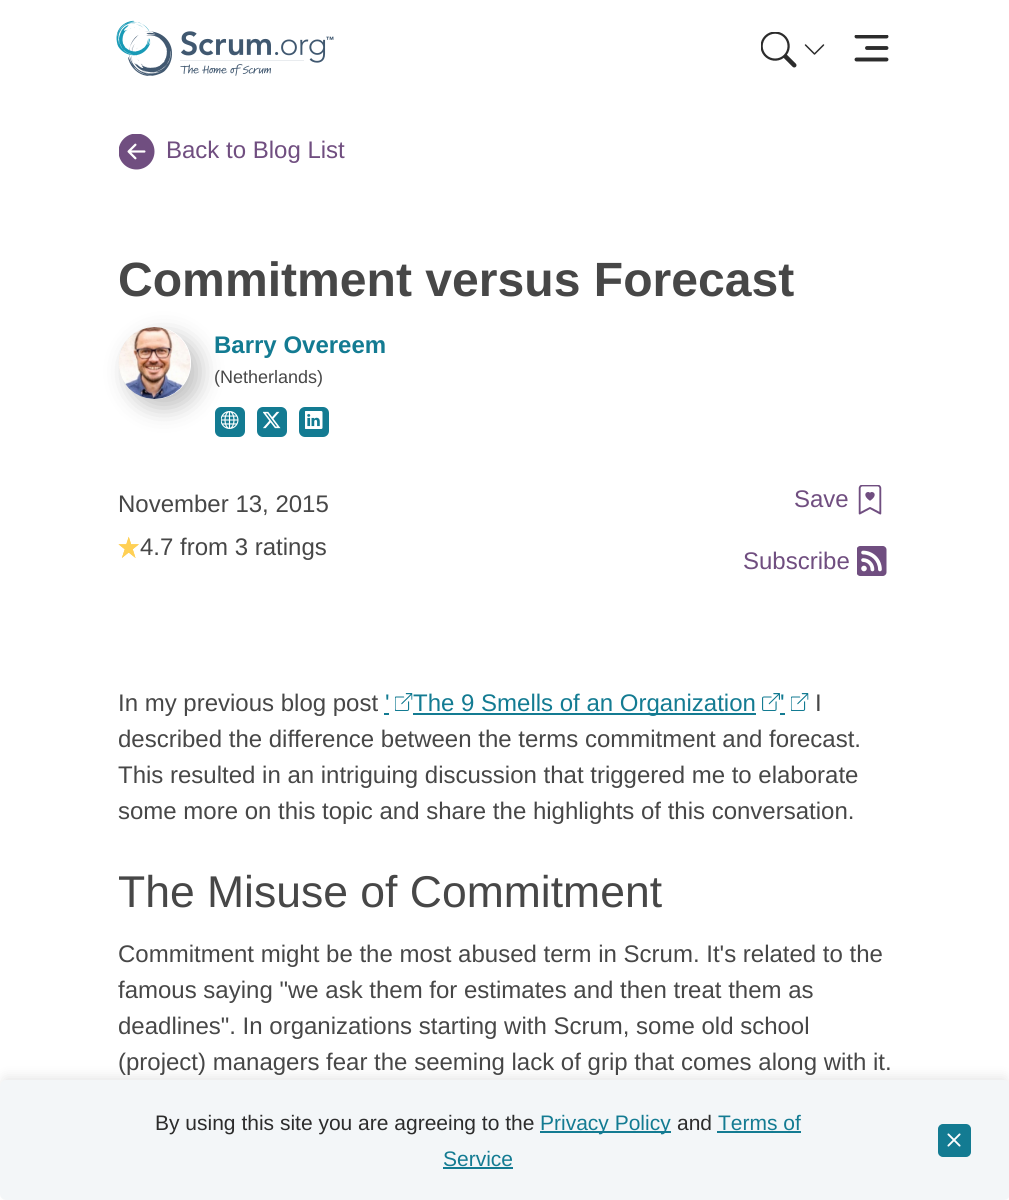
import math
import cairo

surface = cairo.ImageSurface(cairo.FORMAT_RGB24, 1009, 1200)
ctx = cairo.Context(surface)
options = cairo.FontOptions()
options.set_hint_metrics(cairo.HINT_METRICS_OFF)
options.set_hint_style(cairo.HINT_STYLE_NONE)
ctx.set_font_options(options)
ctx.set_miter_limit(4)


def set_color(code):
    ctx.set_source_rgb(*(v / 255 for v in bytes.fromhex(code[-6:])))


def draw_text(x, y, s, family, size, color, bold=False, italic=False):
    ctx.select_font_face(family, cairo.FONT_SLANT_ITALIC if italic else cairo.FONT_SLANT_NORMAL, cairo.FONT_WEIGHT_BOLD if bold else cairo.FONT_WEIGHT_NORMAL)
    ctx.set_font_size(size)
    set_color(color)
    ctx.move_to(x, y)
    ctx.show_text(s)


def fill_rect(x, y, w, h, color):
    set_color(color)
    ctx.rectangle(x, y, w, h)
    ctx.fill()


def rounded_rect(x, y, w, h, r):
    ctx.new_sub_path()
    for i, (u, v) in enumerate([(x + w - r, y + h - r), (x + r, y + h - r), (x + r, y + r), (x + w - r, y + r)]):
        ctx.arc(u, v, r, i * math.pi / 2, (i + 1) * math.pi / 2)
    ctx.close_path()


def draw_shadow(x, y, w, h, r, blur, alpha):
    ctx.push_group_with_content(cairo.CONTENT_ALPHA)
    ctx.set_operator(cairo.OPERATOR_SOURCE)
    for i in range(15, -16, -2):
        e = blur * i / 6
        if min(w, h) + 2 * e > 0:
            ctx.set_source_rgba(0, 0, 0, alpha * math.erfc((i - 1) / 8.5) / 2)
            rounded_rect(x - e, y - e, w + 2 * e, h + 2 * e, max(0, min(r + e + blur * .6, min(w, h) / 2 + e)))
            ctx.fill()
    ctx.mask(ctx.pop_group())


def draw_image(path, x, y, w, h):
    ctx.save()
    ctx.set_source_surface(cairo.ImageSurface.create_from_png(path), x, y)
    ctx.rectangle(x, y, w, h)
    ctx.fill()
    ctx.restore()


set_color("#ffffff")
ctx.paint()
draw_image("assets/img1.png", 116, 20, 218, 56)
draw_image("assets/img2.png", 761, 32, 36, 36)
draw_image("assets/img3.png", 804, 44, 21, 11)
ctx.save()
ctx.rectangle(854, 35, 36, 27)
ctx.clip()
ctx.new_path()
ctx.move_to(886.5, 36.5)
ctx.line_to(856.5, 36.5)
set_color("#2c2c2c")
ctx.set_line_width(3.9)
ctx.set_line_cap(cairo.LINE_CAP_ROUND)
ctx.set_line_join(cairo.LINE_JOIN_ROUND)
ctx.stroke()
ctx.restore()
ctx.new_path()
ctx.move_to(886.5, 48)
ctx.line_to(867, 48)
ctx.move_to(886.5, 59.5)
ctx.line_to(856.5, 59.5)
set_color("#2c2c2c")
ctx.set_line_width(3.9)
ctx.set_line_cap(cairo.LINE_CAP_ROUND)
ctx.set_line_join(cairo.LINE_JOIN_ROUND)
ctx.stroke()
draw_image("assets/img4.png", 119, 134, 36, 36)
draw_text(166, 158, "Back to Blog List", "Liberation Sans", 24, "#704e80")
draw_text(118, 296, "Commitment versus Forecast", "Liberation Sans", 48.1, "#474747", bold=True)
draw_image("assets/img5.png", 118, 327, 73, 72)
set_color("#137b92")
rounded_rect(216, 408, 28, 28, 5)
ctx.fill_preserve()
ctx.set_line_width(2)
ctx.set_line_cap(cairo.LINE_CAP_BUTT)
ctx.set_line_join(cairo.LINE_JOIN_MITER)
ctx.stroke()
draw_image("assets/img6.png", 221, 411, 18, 18)
ctx.save()
ctx.set_fill_rule(cairo.FILL_RULE_EVEN_ODD)
ctx.new_path()
ctx.move_to(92, 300)
ctx.line_to(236, 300)
ctx.line_to(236, 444)
ctx.line_to(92, 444)
ctx.close_path()
ctx.move_to(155, 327)
ctx.curve_to(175, 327, 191, 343, 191, 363)
ctx.curve_to(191, 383, 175, 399, 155, 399)
ctx.curve_to(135, 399, 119, 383, 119, 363)
ctx.curve_to(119, 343, 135, 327, 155, 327)
ctx.close_path()
ctx.clip()
set_color("#000000")
draw_shadow(128, 336, 72, 72, 36, 11.5, 0.25)
ctx.restore()
draw_text(214, 353, "Barry Overeem", "Liberation Sans", 24, "#137b92", bold=True)
draw_text(214, 383, "(Netherlands)", "Liberation Sans", 18, "#474747")
set_color("#137b92")
rounded_rect(258, 408, 28, 28, 5)
ctx.fill_preserve()
ctx.stroke()
draw_image("assets/img7.png", 263, 411, 18, 18)
rounded_rect(300, 408, 28, 28, 5)
ctx.fill_preserve()
ctx.stroke()
draw_image("assets/img8.png", 305, 411, 18, 18)
draw_text(118, 512, "November 13, 2015", "Liberation Sans", 24, "#474747")
draw_image("assets/img9.png", 118, 536, 21, 22)
draw_text(140, 555, "4.7 from 3 ratings", "Liberation Sans", 24, "#474747")
draw_text(794, 507, "Save", "Liberation Sans", 24, "#704e80")
draw_image("assets/img10.png", 858, 485, 24, 30)
draw_text(743, 569, "Subscribe", "Liberation Sans", 24, "#704e80")
draw_image("assets/img11.png", 857, 546, 30, 30)
draw_text(118, 711, "In my previous blog post", "Liberation Sans", 24, "#474747")
draw_text(385, 711, "'", "Liberation Sans", 24, "#137b92")
fill_rect(384, 713, 5, 2, "#137b92")
draw_image("assets/img12.png", 395, 693, 18, 18)
fill_rect(413, 713, 343, 2, "#137b92")
draw_text(413, 711, "The 9 Smells of an Organization", "Liberation Sans", 24, "#137b92")
draw_image("assets/img13.png", 762, 693, 18, 18)
draw_text(780, 711, "'", "Liberation Sans", 24, "#137b92")
fill_rect(780, 713, 5, 2, "#137b92")
draw_image("assets/img12.png", 791, 693, 18, 18)
draw_text(815, 711, "I", "Liberation Sans", 24, "#474747")
draw_text(118, 747, "described the difference between the terms commitment and forecast.", "Liberation Sans", 24, "#474747")
draw_text(118, 783, "This resulted in an intriguing discussion that triggered me to elaborate", "Liberation Sans", 24, "#474747")
draw_text(118, 819, "some more on this topic and share the highlights of this conversation.", "Liberation Sans", 24, "#474747")
draw_text(118, 907, "The Misuse of Commitment", "Liberation Sans", 44.5, "#474747")
draw_text(118, 962, "Commitment might be the most abused term in Scrum. It's related to the", "Liberation Sans", 24, "#474747")
draw_text(118, 998, "famous saying \"we ask them for estimates and then treat them as", "Liberation Sans", 24, "#474747")
draw_text(118, 1034, "deadlines\". In organizations starting with Scrum, some old school", "Liberation Sans", 24, "#474747")
draw_text(118, 1070, "(project) managers fear the seeming lack of grip that comes along with it.", "Liberation Sans", 24, "#474747")
set_color("#000000")
draw_shadow(3, 1077, 1004, 114, 3, 6, 0.1)
set_color("#f3f6f8")
rounded_rect(0, 1080, 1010, 120, 6)
ctx.fill()
draw_text(155, 1130, "By using this site you are agreeing to the", "Liberation Sans", 21, "#2c2c2c")
fill_rect(540, 1131, 131, 2, "#137b92")
draw_text(540, 1130, "Privacy Policy", "Liberation Sans", 21, "#137b92")
draw_text(677, 1130, "and", "Liberation Sans", 21, "#2c2c2c")
draw_text(718, 1130, "Terms of", "Liberation Sans", 21, "#137b92")
fill_rect(717, 1131, 84, 2, "#137b92")
draw_text(443, 1166, "Service", "Liberation Sans", 21, "#137b92")
fill_rect(443, 1167, 70, 2, "#137b92")
rounded_rect(939, 1125, 31, 31, 4)
ctx.fill_preserve()
ctx.stroke()
draw_image("assets/img14.png", 947, 1133, 14, 14)
surface.write_to_png("output.png")
